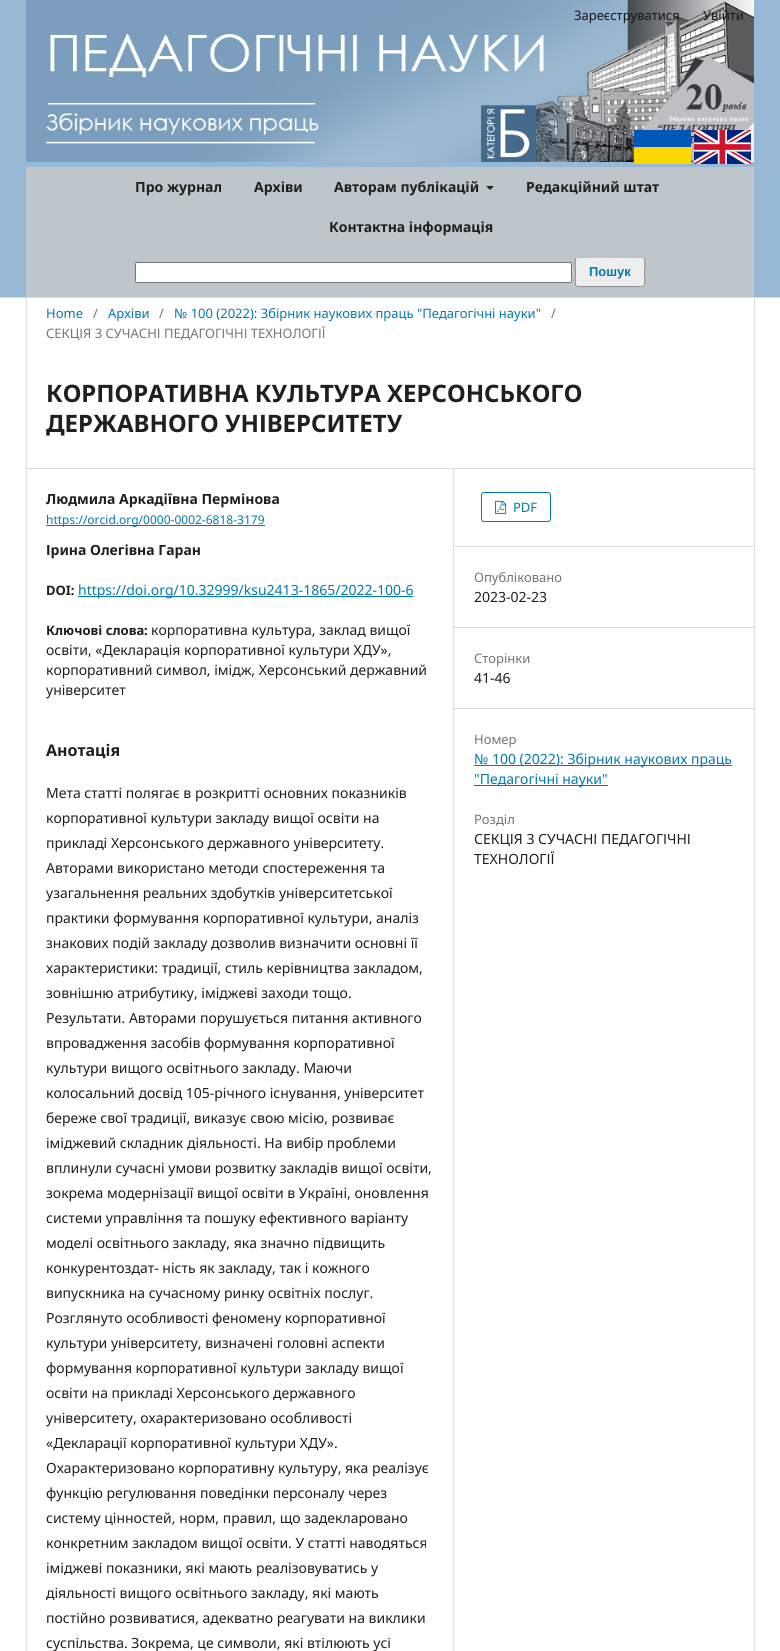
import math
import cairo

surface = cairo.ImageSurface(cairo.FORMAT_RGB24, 780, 1651)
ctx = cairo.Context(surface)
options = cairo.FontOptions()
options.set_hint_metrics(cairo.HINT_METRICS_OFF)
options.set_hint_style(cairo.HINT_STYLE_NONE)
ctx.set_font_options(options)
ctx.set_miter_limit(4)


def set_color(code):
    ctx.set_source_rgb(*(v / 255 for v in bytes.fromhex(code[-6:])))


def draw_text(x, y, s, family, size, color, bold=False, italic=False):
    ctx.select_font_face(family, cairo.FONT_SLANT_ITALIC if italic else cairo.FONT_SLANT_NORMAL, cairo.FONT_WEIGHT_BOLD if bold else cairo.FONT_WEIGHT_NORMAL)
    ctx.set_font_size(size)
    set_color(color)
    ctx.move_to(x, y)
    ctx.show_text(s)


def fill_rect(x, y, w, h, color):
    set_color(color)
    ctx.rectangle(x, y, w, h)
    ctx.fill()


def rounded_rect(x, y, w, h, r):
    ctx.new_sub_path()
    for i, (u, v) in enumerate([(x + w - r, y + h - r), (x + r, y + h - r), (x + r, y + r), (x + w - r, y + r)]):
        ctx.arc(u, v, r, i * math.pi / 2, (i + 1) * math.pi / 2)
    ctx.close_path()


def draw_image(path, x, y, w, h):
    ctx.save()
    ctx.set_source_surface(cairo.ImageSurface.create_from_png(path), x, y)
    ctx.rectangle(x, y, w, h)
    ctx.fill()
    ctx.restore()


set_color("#ffffff")
ctx.paint()
fill_rect(0, 0, 780, 297, "#97b9d5")
fill_rect(0, 297, 780, 1, "#dddddd")
draw_image("assets/img1.png", 26, 0, 728, 162)
draw_text(574, 20, "Зареєструватися", "Noto Sans", 13, "#141719")
draw_text(703, 20, "Увійти", "Noto Sans", 13, "#141719")
fill_rect(634, 130, 57, 17, "#0057b8")
fill_rect(634, 147, 57, 17, "#ffd700")
draw_image("assets/img2.png", 694, 130, 57, 34)
fill_rect(26, 167, 728, 130, "#bec5cb")
draw_text(135, 192, "Про журнал", "Noto Sans", 14, "#1e2020", bold=True)
draw_text(254, 192, "Архіви", "Noto Sans", 14, "#1e2020", bold=True)
draw_text(334, 192, "Авторам публікацій", "Noto Sans", 14, "#1e2020", bold=True)
ctx.new_path()
ctx.move_to(486, 186)
ctx.line_to(494, 186)
ctx.line_to(490, 190)
ctx.close_path()
ctx.fill()
draw_text(526, 192, "Редакційний штат", "Noto Sans", 14, "#1e2020", bold=True)
draw_text(329, 232, "Контактна інформація", "Noto Sans", 14, "#1e2020", bold=True)
set_color("#ffffff")
rounded_rect(135.5, 262.5, 436, 20, 1.5)
ctx.fill_preserve()
set_color("#767676")
ctx.set_line_width(1)
ctx.stroke()
set_color("#eeeeee")
rounded_rect(575, 257, 70, 30, 3)
ctx.fill()
ctx.new_path()
ctx.move_to(576, 258)
ctx.line_to(576.5, 258)
ctx.curve_to(578.5, 256.5, 625, 257.5, 631.5, 257.5)
ctx.line_to(642, 257.5)
ctx.line_to(644, 258)
set_color("#bbbbbb")
ctx.stroke()
ctx.new_path()
ctx.move_to(644, 258)
ctx.curve_to(645.5, 260, 644.5, 269.5, 644.5, 272)
ctx.curve_to(644.5, 288.5, 647.5, 286.5, 631.5, 286.5)
ctx.line_to(588.5, 286.5)
ctx.curve_to(572.5, 286.5, 575.5, 288.5, 575.5, 272)
ctx.curve_to(575.5, 269.5, 574.5, 260, 576, 258)
ctx.set_source_rgba(0, 0, 0, 0.4)
ctx.stroke()
draw_text(589, 276, "Пошук", "Liberation Sans", 13, "#007ab2", bold=True)
fill_rect(26, 468, 728, 1, "#dddddd")
fill_rect(26, 298, 1, 1353, "#dddddd")
draw_text(46, 318, "Home", "Noto Sans", 13, "#007ab2")
draw_text(93, 318, "/", "Noto Sans", 13, "#757575")
draw_text(108, 318, "Архіви", "Noto Sans", 13, "#007ab2")
draw_text(159, 318, "/", "Noto Sans", 13, "#757575")
draw_text(174, 318, "№ 100 (2022): Збірник наукових праць \"Педагогічні науки\"", "Noto Sans", 13, "#007ab2")
draw_text(551, 318, "/", "Noto Sans", 13, "#757575")
draw_text(46, 338, "СЕКЦІЯ 3 СУЧАСНІ ПЕДАГОГІЧНІ ТЕХНОЛОГІЇ", "Noto Sans", 13, "#757575")
draw_text(46, 402, "КОРПОРАТИВНА КУЛЬТУРА ХЕРСОНСЬКОГО", "Noto Sans", 24, "#1e2020", bold=True)
draw_text(46, 432, "ДЕРЖАВНОГО УНІВЕРСИТЕТУ", "Noto Sans", 24, "#1e2020", bold=True)
fill_rect(453, 469, 1, 1182, "#dddddd")
draw_text(46, 504, "Людмила Аркадіївна Пермінова", "Noto Sans", 14, "#1e2020", bold=True)
fill_rect(46, 525, 219, 1, "#007ab2")
draw_text(46, 524, "https://orcid.org/0000-0002-6818-3179", "Noto Sans", 12, "#007ab2")
draw_text(46, 555, "Ірина Олегівна Гаран", "Noto Sans", 14, "#1e2020", bold=True)
draw_text(46, 595, "DOI:", "Noto Sans", 13, "#1e2020", bold=True)
fill_rect(78, 596, 335, 1, "#007ab2")
draw_text(78, 595, "https://doi.org/10.32999/ksu2413-1865/2022-100-6", "Noto Sans", 14, "#007ab2")
draw_text(46, 635, "Ключові слова:", "Noto Sans", 13, "#1e2020", bold=True)
draw_text(151, 635, "корпоративна культура, заклад вищої", "Noto Sans", 14, "#1e2020")
draw_text(46, 655, "освіти, «Декларація корпоративної культури ХДУ»,", "Noto Sans", 14, "#1e2020")
draw_text(46, 675, "корпоративний символ, імідж, Херсонський державний", "Noto Sans", 14, "#1e2020")
draw_text(46, 695, "університет", "Noto Sans", 14, "#1e2020")
draw_text(46, 756, "Анотація", "Noto Sans", 16, "#1e2020", bold=True)
draw_text(46, 798, "Мета статті полягає в розкритті основних показників", "Noto Sans", 14, "#1e2020")
draw_text(46, 823, "корпоративної культури закладу вищої освіти на", "Noto Sans", 14, "#1e2020")
draw_text(46, 848, "прикладі Херсонського державного університету.", "Noto Sans", 14, "#1e2020")
draw_text(46, 873, "Авторами використано методи спостереження та", "Noto Sans", 14, "#1e2020")
draw_text(46, 898, "узагальнення реальних здобутків університетської", "Noto Sans", 14, "#1e2020")
draw_text(46, 923, "практики формування корпоративної культури, аналіз", "Noto Sans", 14, "#1e2020")
draw_text(46, 948, "знакових подій закладу дозволив визначити основні її", "Noto Sans", 14, "#1e2020")
draw_text(46, 973, "характеристики: традиції, стиль керівництва закладом,", "Noto Sans", 14, "#1e2020")
draw_text(46, 998, "зовнішню атрибутику, іміджеві заходи тощо.", "Noto Sans", 14, "#1e2020")
draw_text(46, 1023, "Результати. Авторами порушується питання активного", "Noto Sans", 14, "#1e2020")
draw_text(46, 1048, "впровадження засобів формування корпоративної", "Noto Sans", 14, "#1e2020")
draw_text(46, 1073, "культури вищого освітнього закладу. Маючи", "Noto Sans", 14, "#1e2020")
draw_text(46, 1098, "колосальний досвід 105-річного існування, університет", "Noto Sans", 14, "#1e2020")
draw_text(46, 1123, "береже свої традиції, виказує свою місію, розвиває", "Noto Sans", 14, "#1e2020")
draw_text(46, 1148, "іміджевий складник діяльності. На вибір проблеми", "Noto Sans", 14, "#1e2020")
draw_text(46, 1173, "вплинули сучасні умови розвитку закладів вищої освіти,", "Noto Sans", 14, "#1e2020")
draw_text(46, 1198, "зокрема модернізації вищої освіти в Україні, оновлення", "Noto Sans", 14, "#1e2020")
draw_text(46, 1223, "системи управління та пошуку ефективного варіанту", "Noto Sans", 14, "#1e2020")
draw_text(46, 1248, "моделі освітнього закладу, яка значно підвищить", "Noto Sans", 14, "#1e2020")
draw_text(46, 1273, "конкурентоздат- ність як закладу, так і кожного", "Noto Sans", 14, "#1e2020")
draw_text(46, 1298, "випускника на сучасному ринку освітніх послуг.", "Noto Sans", 14, "#1e2020")
draw_text(46, 1323, "Розглянуто особливості феномену корпоративної", "Noto Sans", 14, "#1e2020")
draw_text(46, 1348, "культури університету, визначені головні аспекти", "Noto Sans", 14, "#1e2020")
draw_text(46, 1373, "формування корпоративної культури закладу вищої", "Noto Sans", 14, "#1e2020")
draw_text(46, 1398, "освіти на прикладі Херсонського державного", "Noto Sans", 14, "#1e2020")
draw_text(46, 1423, "університету, охарактеризовано особливості", "Noto Sans", 14, "#1e2020")
draw_text(46, 1448, "«Декларації корпоративної культури ХДУ».", "Noto Sans", 14, "#1e2020")
draw_text(46, 1473, "Охарактеризовано корпоративну культуру, яка реалізує", "Noto Sans", 14, "#1e2020")
draw_text(46, 1498, "функцію регулювання поведінки персоналу через", "Noto Sans", 14, "#1e2020")
draw_text(46, 1523, "систему цінностей, норм, правил, що задекларовано", "Noto Sans", 14, "#1e2020")
draw_text(46, 1548, "конкретним закладом вищої освіти. У статті наводяться", "Noto Sans", 14, "#1e2020")
draw_text(46, 1573, "іміджеві показники, які мають реалізовуватись у", "Noto Sans", 14, "#1e2020")
draw_text(46, 1598, "діяльності вищого освітнього закладу, які мають", "Noto Sans", 14, "#1e2020")
draw_text(46, 1623, "постійно розвиватися, адекватно реагувати на виклики", "Noto Sans", 14, "#1e2020")
draw_text(46, 1648, "суспільства. Зокрема, це символи, які втілюють усі", "Noto Sans", 14, "#1e2020")
fill_rect(454, 546, 300, 1, "#dddddd")
rounded_rect(481.5, 492.5, 69, 29, 2.5)
set_color("#007ab2")
ctx.stroke()
draw_image("assets/img3.png", 495, 500, 12, 14)
draw_text(513, 512, "PDF", "Noto Sans", 13, "#007ab2")
fill_rect(454, 627, 300, 1, "#dddddd")
draw_text(474, 582, "Опубліковано", "Noto Sans", 13, "#757575")
draw_text(474, 602, "2023-02-23", "Noto Sans", 14, "#1e2020")
fill_rect(454, 708, 300, 1, "#dddddd")
draw_text(474, 663, "Сторінки", "Noto Sans", 13, "#757575")
draw_text(474, 683, "41-46", "Noto Sans", 14, "#1e2020")
draw_text(474, 744, "Номер", "Noto Sans", 13, "#757575")
fill_rect(474, 765, 258, 1, "#007ab2")
draw_text(474, 764, "№ 100 (2022): Збірник наукових праць", "Noto Sans", 14, "#007ab2")
fill_rect(474, 785, 134, 1, "#007ab2")
draw_text(474, 784, "\"Педагогічні науки\"", "Noto Sans", 14, "#007ab2")
draw_text(474, 824, "Розділ", "Noto Sans", 13, "#757575")
draw_text(474, 844, "СЕКЦІЯ 3 СУЧАСНІ ПЕДАГОГІЧНІ", "Noto Sans", 14, "#1e2020")
draw_text(474, 864, "ТЕХНОЛОГІЇ", "Noto Sans", 14, "#1e2020")
fill_rect(754, 298, 1, 1353, "#dddddd")
surface.write_to_png("output.png")
